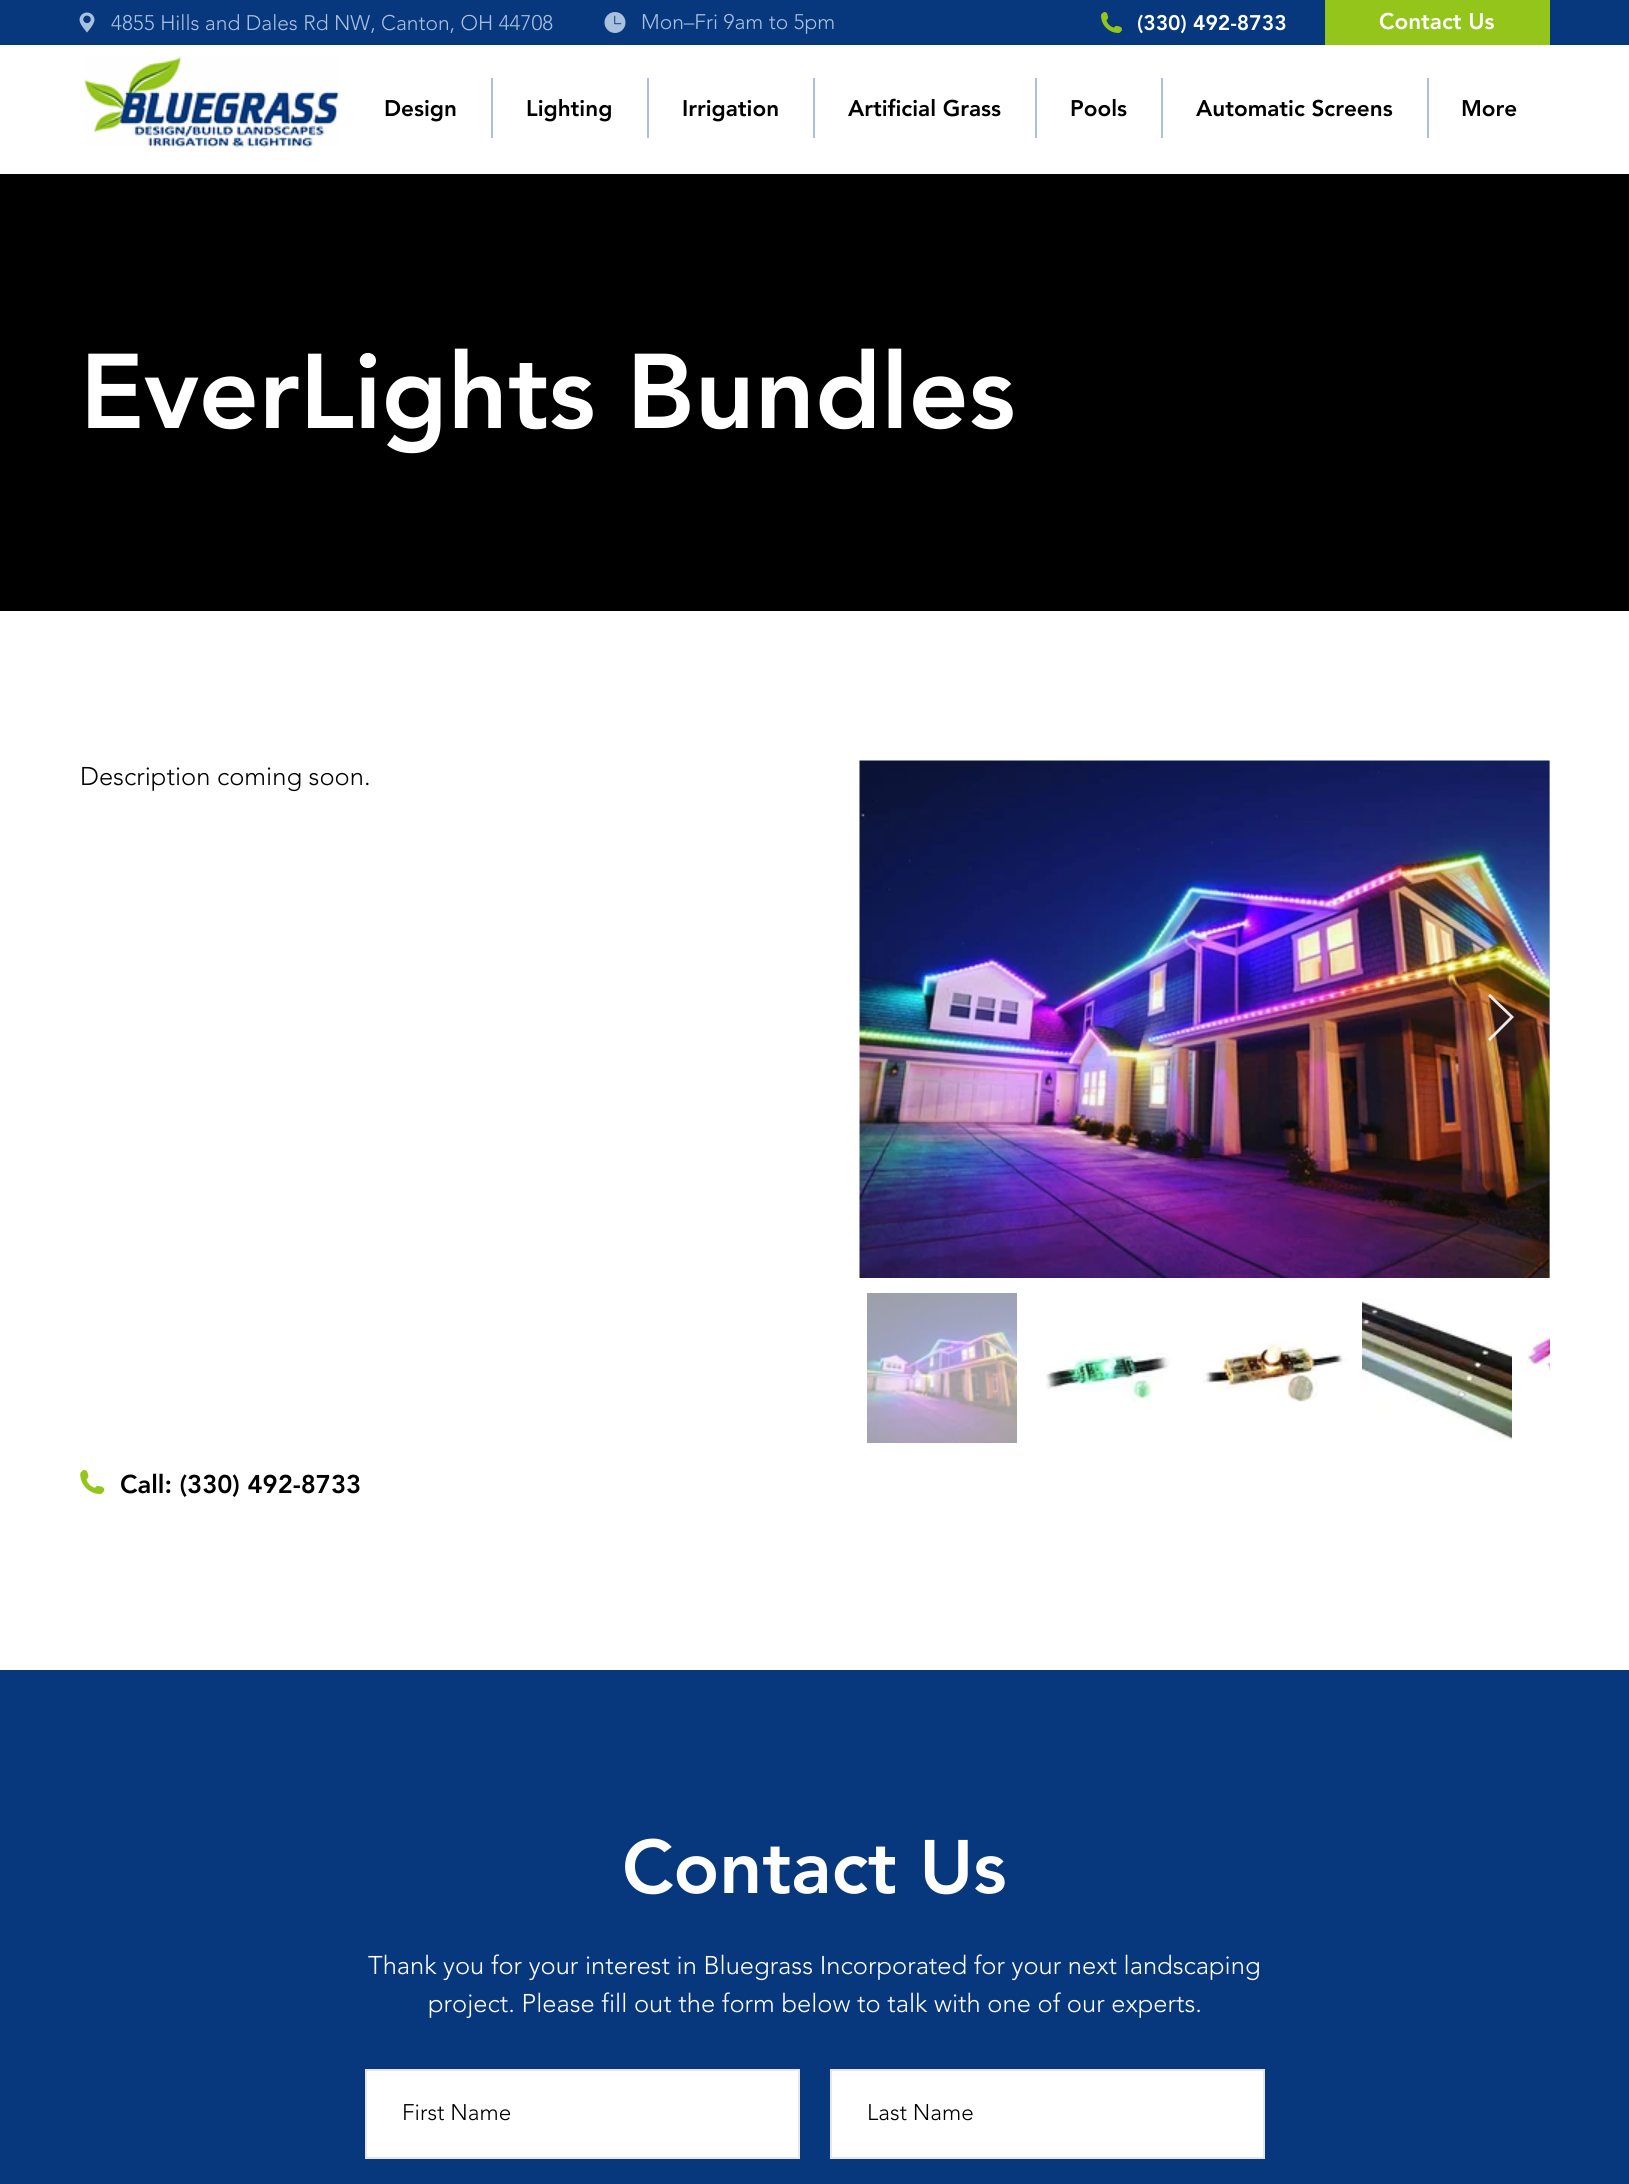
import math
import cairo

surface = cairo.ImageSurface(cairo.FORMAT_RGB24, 1629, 2184)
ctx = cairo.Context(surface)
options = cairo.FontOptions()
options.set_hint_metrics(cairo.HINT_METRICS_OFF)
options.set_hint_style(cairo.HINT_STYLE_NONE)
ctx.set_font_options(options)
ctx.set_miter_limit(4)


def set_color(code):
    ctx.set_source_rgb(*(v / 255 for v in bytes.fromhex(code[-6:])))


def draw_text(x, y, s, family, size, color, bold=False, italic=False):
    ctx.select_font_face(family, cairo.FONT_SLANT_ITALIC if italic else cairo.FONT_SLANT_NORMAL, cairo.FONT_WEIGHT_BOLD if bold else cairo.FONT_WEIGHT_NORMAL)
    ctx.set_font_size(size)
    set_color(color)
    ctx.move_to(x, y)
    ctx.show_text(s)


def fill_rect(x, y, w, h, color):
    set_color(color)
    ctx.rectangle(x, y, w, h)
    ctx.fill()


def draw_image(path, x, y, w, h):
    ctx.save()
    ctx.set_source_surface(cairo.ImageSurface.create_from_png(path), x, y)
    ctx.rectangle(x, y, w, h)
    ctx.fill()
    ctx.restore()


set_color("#ffffff")
ctx.paint()
fill_rect(0, 0, 1629, 45, "#07387e")
draw_image("assets/img1.png", 79, 12, 16, 21)
draw_text(111, 30, "4855 Hills and Dales Rd NW, Canton, OH 44708", "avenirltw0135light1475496 Light", 21, "#aac0df")
draw_image("assets/img2.png", 604, 12, 22, 21)
draw_text(641, 29, "Mon–Fri 9am to 5pm", "avenirltw0135light1475496 Light", 21, "#aac0df")
draw_image("assets/img3.png", 1101, 12, 21, 21)
draw_text(1137, 30, "(330) 492-8733", "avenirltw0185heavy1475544 Black", 21, "#ffffff")
fill_rect(1325, 0, 225, 45, "#93c51b")
draw_text(1379, 29, "Contact Us", "avenirltw0185heavy1475544 Black", 22.5, "#ffffff")
draw_image("assets/img4.png", 84, 56, 256, 92)
draw_text(384, 116, "Design", "avenirltw0185heavy1475544 Black", 22.5, "#000000")
fill_rect(491, 78, 2, 60, "#aac0df")
draw_text(526, 116, "Lighting", "avenirltw0185heavy1475544 Black", 22.5, "#000000")
fill_rect(647, 78, 2, 60, "#aac0df")
draw_text(682, 116, "Irrigation", "avenirltw0185heavy1475544 Black", 22.5, "#000000")
fill_rect(813, 78, 2, 60, "#aac0df")
draw_text(848, 116, "Artificial Grass", "avenirltw0185heavy1475544 Black", 22.5, "#000000")
fill_rect(1035, 78, 2, 60, "#aac0df")
draw_text(1070, 116, "Pools", "avenirltw0185heavy1475544 Black", 22.5, "#000000")
fill_rect(1161, 78, 2, 60, "#aac0df")
draw_text(1196, 116, "Automatic Screens", "avenirltw0185heavy1475544 Black", 22.5, "#000000")
fill_rect(1427, 78, 2, 60, "#aac0df")
draw_text(1461, 116, "More", "avenirltw0185heavy1475544 Black", 22.5, "#000000")
fill_rect(0, 174, 1629, 437, "#000000")
draw_text(80, 428, "EverLights Bundles", "avenirltw0185heavy1475544 Black", 105, "#ffffff")
draw_text(80, 785, "Description coming soon.", "avenirltw0135light1475496 Light", 25.5, "#000000")
fill_rect(1549, 761, 1, 517, "#c7c7c7")
draw_image("assets/img5.png", 859, 760, 691, 518)
ctx.set_source_rgba(1, 1, 1, 0.9)
ctx.new_path()
ctx.move_to(1488, 996)
ctx.line_to(1490, 994)
ctx.line_to(1514, 1017)
ctx.line_to(1490, 1041)
ctx.line_to(1488, 1039)
ctx.line_to(1510, 1017)
ctx.close_path()
ctx.fill()
draw_image("assets/img6.png", 867, 1293, 150, 150)
draw_image("assets/img7.png", 1044, 1353, 126, 49)
draw_image("assets/img8.png", 1203, 1340, 144, 62)
draw_image("assets/img9.png", 1362, 1299, 150, 144)
draw_image("assets/img10.png", 1527, 1329, 23, 43)
draw_image("assets/img11.png", 80, 1470, 25, 24)
draw_text(120, 1493, "Call: (330) 492-8733", "avenirltw0185heavy1475544 Black", 25.5, "#000000")
fill_rect(0, 1670, 1629, 514, "#07387e")
draw_text(622, 1893, "Contact Us", "avenirltw0185heavy1475544 Black", 75, "#ffffff")
draw_text(368, 1974, "Thank you for your interest in Bluegrass Incorporated for your next landscaping", "avenirltw0135light1475496 Light", 25.5, "#ffffff")
draw_text(428, 2012, "project. Please fill out the form below to talk with one of our experts.", "avenirltw0135light1475496 Light", 25.5, "#ffffff")
ctx.rectangle(366, 2070, 433, 88)
ctx.fill_preserve()
set_color("#e8e6e6")
ctx.stroke()
draw_text(402, 2120, "First Name", "avenirltw0135light1475496 Light", 22.5, "#000000")
set_color("#ffffff")
ctx.rectangle(831, 2070, 433, 88)
ctx.fill_preserve()
set_color("#e8e6e6")
ctx.stroke()
draw_text(867, 2120, "Last Name", "avenirltw0135light1475496 Light", 22.5, "#000000")
surface.write_to_png("output.png")
